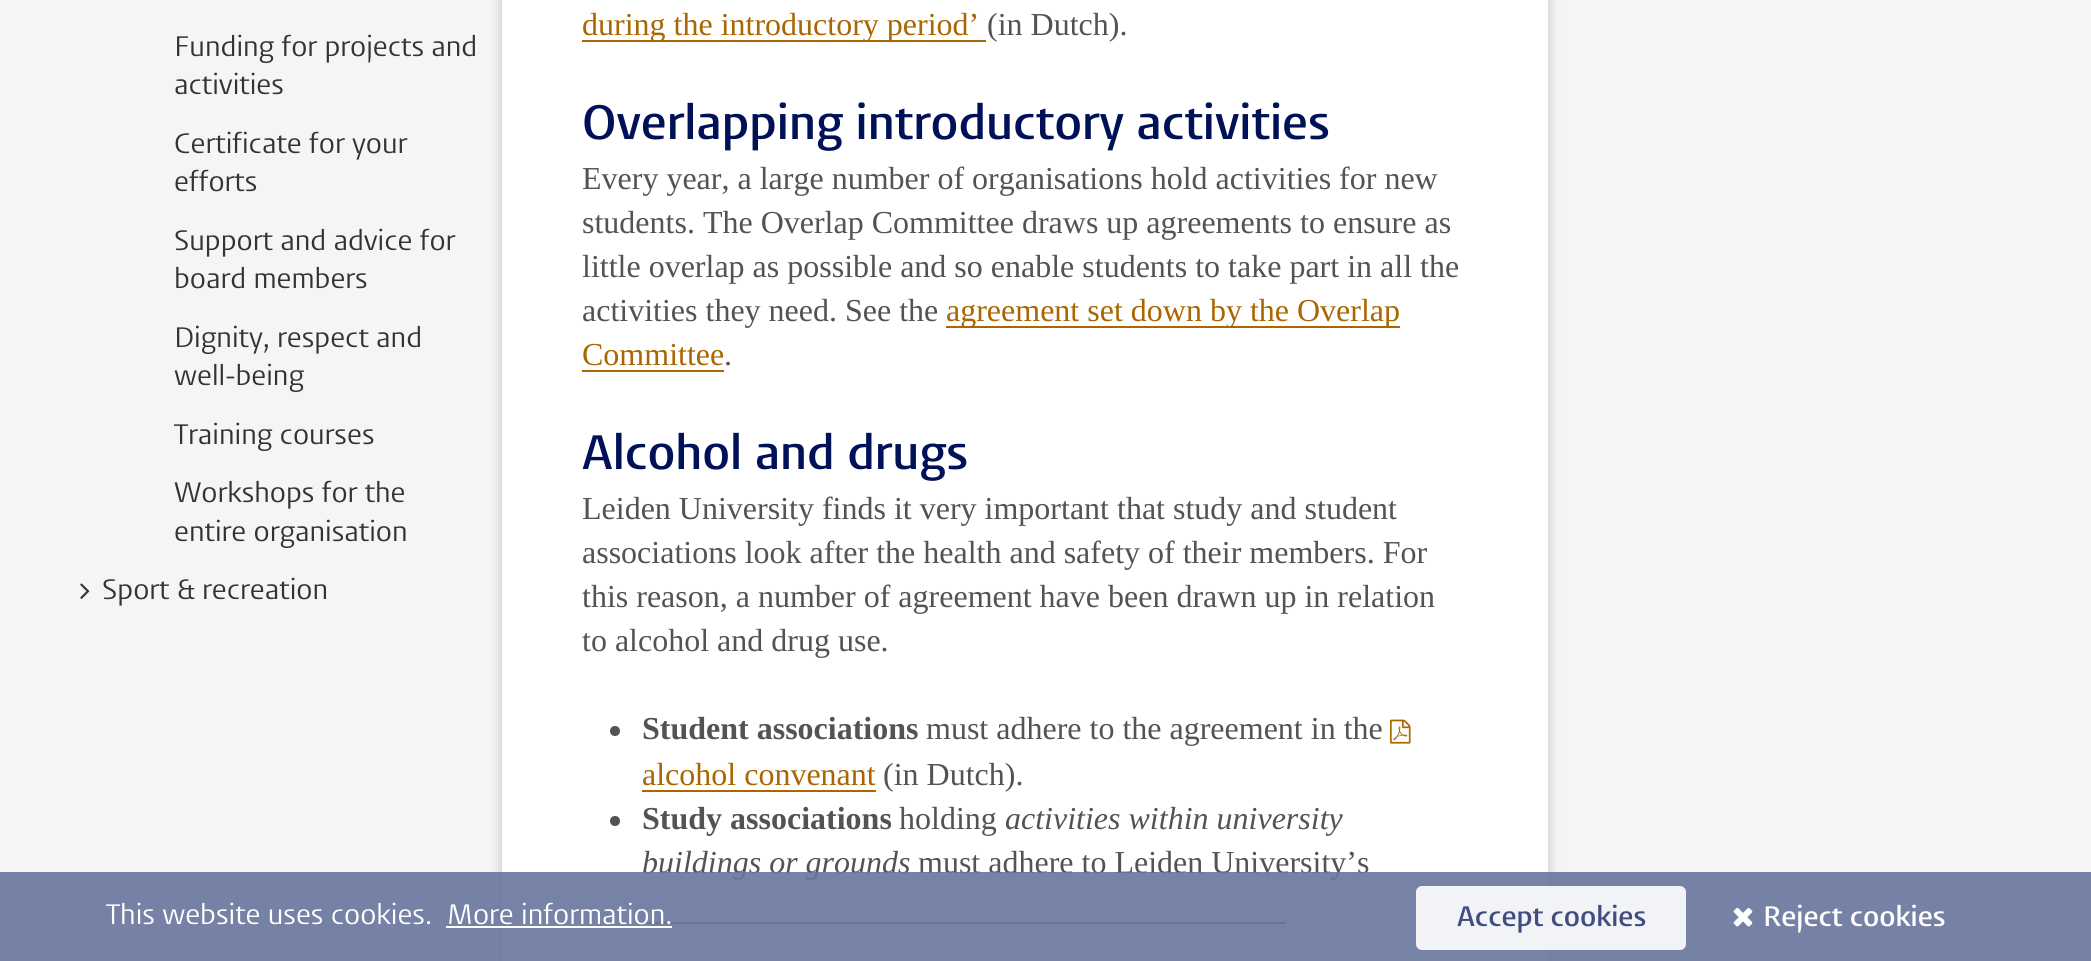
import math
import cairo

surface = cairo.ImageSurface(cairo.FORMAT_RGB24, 2091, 961)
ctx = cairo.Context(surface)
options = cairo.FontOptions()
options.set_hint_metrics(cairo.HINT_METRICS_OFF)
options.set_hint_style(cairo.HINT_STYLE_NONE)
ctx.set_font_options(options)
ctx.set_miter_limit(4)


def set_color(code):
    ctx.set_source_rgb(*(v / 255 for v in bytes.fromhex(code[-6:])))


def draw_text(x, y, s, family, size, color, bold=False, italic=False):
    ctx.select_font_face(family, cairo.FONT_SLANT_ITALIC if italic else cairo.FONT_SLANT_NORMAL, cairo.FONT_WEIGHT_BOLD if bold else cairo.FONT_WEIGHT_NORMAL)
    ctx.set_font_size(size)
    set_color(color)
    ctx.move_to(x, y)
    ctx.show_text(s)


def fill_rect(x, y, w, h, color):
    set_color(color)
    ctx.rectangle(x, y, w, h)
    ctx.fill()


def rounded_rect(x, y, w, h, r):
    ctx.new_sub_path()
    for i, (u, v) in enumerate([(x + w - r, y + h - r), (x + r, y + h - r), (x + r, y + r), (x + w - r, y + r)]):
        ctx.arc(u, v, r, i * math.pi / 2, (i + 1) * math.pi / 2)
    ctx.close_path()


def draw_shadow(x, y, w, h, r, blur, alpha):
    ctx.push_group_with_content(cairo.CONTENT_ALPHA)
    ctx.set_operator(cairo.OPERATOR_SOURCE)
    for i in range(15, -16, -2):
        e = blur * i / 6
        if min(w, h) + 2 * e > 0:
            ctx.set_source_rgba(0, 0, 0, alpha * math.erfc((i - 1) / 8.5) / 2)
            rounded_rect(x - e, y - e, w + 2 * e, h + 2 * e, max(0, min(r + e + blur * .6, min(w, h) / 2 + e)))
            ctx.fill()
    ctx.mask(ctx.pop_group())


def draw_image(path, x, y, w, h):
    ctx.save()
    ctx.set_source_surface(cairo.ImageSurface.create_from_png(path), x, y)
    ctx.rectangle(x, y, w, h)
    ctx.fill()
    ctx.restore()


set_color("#f5f5f5")
ctx.paint()
draw_text(174, 56, "Funding for projects and", "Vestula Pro", 28, "#333333")
draw_text(174, 94, "activities", "Vestula Pro", 28, "#333333")
draw_text(174, 153, "Certificate for your", "Vestula Pro", 28, "#333333")
draw_text(174, 191, "efforts", "Vestula Pro", 28, "#333333")
draw_text(174, 250, "Support and advice for", "Vestula Pro", 28, "#333333")
draw_text(174, 288, "board members", "Vestula Pro", 28, "#333333")
draw_text(174, 347, "Dignity, respect and", "Vestula Pro", 28, "#333333")
draw_text(174, 385, "well-being", "Vestula Pro", 28, "#333333")
draw_text(174, 444, "Training courses", "Vestula Pro", 28, "#333333")
draw_text(174, 502, "Workshops for the", "Vestula Pro", 28, "#333333")
draw_text(174, 541, "entire organisation", "Vestula Pro", 28, "#333333")
draw_image("assets/img1.png", 80, 583, 10, 16)
draw_text(102, 599, "Sport & recreation", "Vestula Pro", 28, "#333333")
set_color("#786e64")
draw_shadow(500, -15, 1050, 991, 0, 5, 0.3)
fill_rect(502, 0, 1046, 961, "#ffffff")
fill_rect(582, 40, 404, 2, "#aa6600")
draw_text(582, 35, "during the introductory period’", "Liberation Serif", 32, "#aa6600")
draw_text(987, 35, "(in Dutch).", "Liberation Serif", 32, "#535353")
draw_text(582, 139, "Overlapping introductory activities", "Vestula Pro SemiBold", 48, "#001158")
draw_text(582, 189, "Every year, a large number of organisations hold activities for new", "Liberation Serif", 32, "#535353")
draw_text(582, 233, "students. The Overlap Committee draws up agreements to ensure as", "Liberation Serif", 32, "#535353")
draw_text(582, 277, "little overlap as possible and so enable students to take part in all the", "Liberation Serif", 32, "#535353")
draw_text(582, 321, "activities they need. See the", "Liberation Serif", 32, "#535353")
fill_rect(946, 326, 454, 2, "#aa6600")
draw_text(946, 321, "agreement set down by the Overlap", "Liberation Serif", 32, "#aa6600")
draw_text(582, 365, "Committee", "Liberation Serif", 32, "#aa6600")
draw_text(724, 365, ".", "Liberation Serif", 32, "#535353")
fill_rect(582, 370, 142, 2, "#aa6600")
draw_text(582, 469, "Alcohol and drugs", "Vestula Pro SemiBold", 48, "#001158")
draw_text(582, 519, "Leiden University finds it very important that study and student", "Liberation Serif", 32, "#535353")
draw_text(582, 563, "associations look after the health and safety of their members. For", "Liberation Serif", 32, "#535353")
draw_text(582, 607, "this reason, a number of agreement have been drawn up in relation", "Liberation Serif", 32, "#535353")
draw_text(582, 651, "to alcohol and drug use.", "Liberation Serif", 32, "#535353")
ctx.new_path()
ctx.arc(615, 731, 5, 0, 2 * math.pi)
ctx.fill()
draw_text(642, 739, "Student associations", "Liberation Serif", 32, "#535353", bold=True)
draw_text(926, 739, "must adhere to the agreement in the", "Liberation Serif", 32, "#535353")
draw_image("assets/img2.png", 1390, 719, 21, 25)
draw_text(642, 785, "alcohol convenant", "Liberation Serif", 32, "#aa6600")
fill_rect(642, 790, 234, 2, "#aa6600")
draw_text(883, 785, "(in Dutch).", "Liberation Serif", 32, "#535353")
ctx.new_path()
ctx.arc(615, 821, 5, 0, 2 * math.pi)
ctx.fill()
draw_text(642, 829, "Study associations", "Liberation Serif", 32, "#535353", bold=True)
draw_text(899, 829, "holding", "Liberation Serif", 32, "#535353")
draw_text(1005, 829, "activities within university", "Liberation Serif", 32, "#535353", italic=True)
draw_text(642, 873, "buildings or grounds", "Liberation Serif", 32, "#535353", italic=True)
draw_text(918, 873, "must adhere to Leiden University’s", "Liberation Serif", 32, "#535353")
fill_rect(642, 922, 644, 2, "#aa6600")
ctx.set_source_rgba(0.408, 0.463, 0.612, 0.9)
ctx.rectangle(0, 872, 2091, 89)
ctx.fill()
draw_text(106, 924, "This website uses cookies.", "Vestula Pro", 28, "#ffffff")
draw_text(447, 924, "More information.", "Vestula Pro", 28, "#ffffff")
fill_rect(446, 926, 226, 2, "#ffffff")
ctx.set_source_rgba(1, 1, 1, 0.9)
rounded_rect(1416, 886, 270, 64, 6)
ctx.fill()
draw_text(1457, 926, "Accept cookies", "Vestula Pro SemiBold", 28, "#404d82")
draw_image("assets/img3.png", 1733, 907, 20, 20)
draw_text(1763, 926, "Reject cookies", "Vestula Pro SemiBold", 28, "#ffffff")
surface.write_to_png("output.png")
